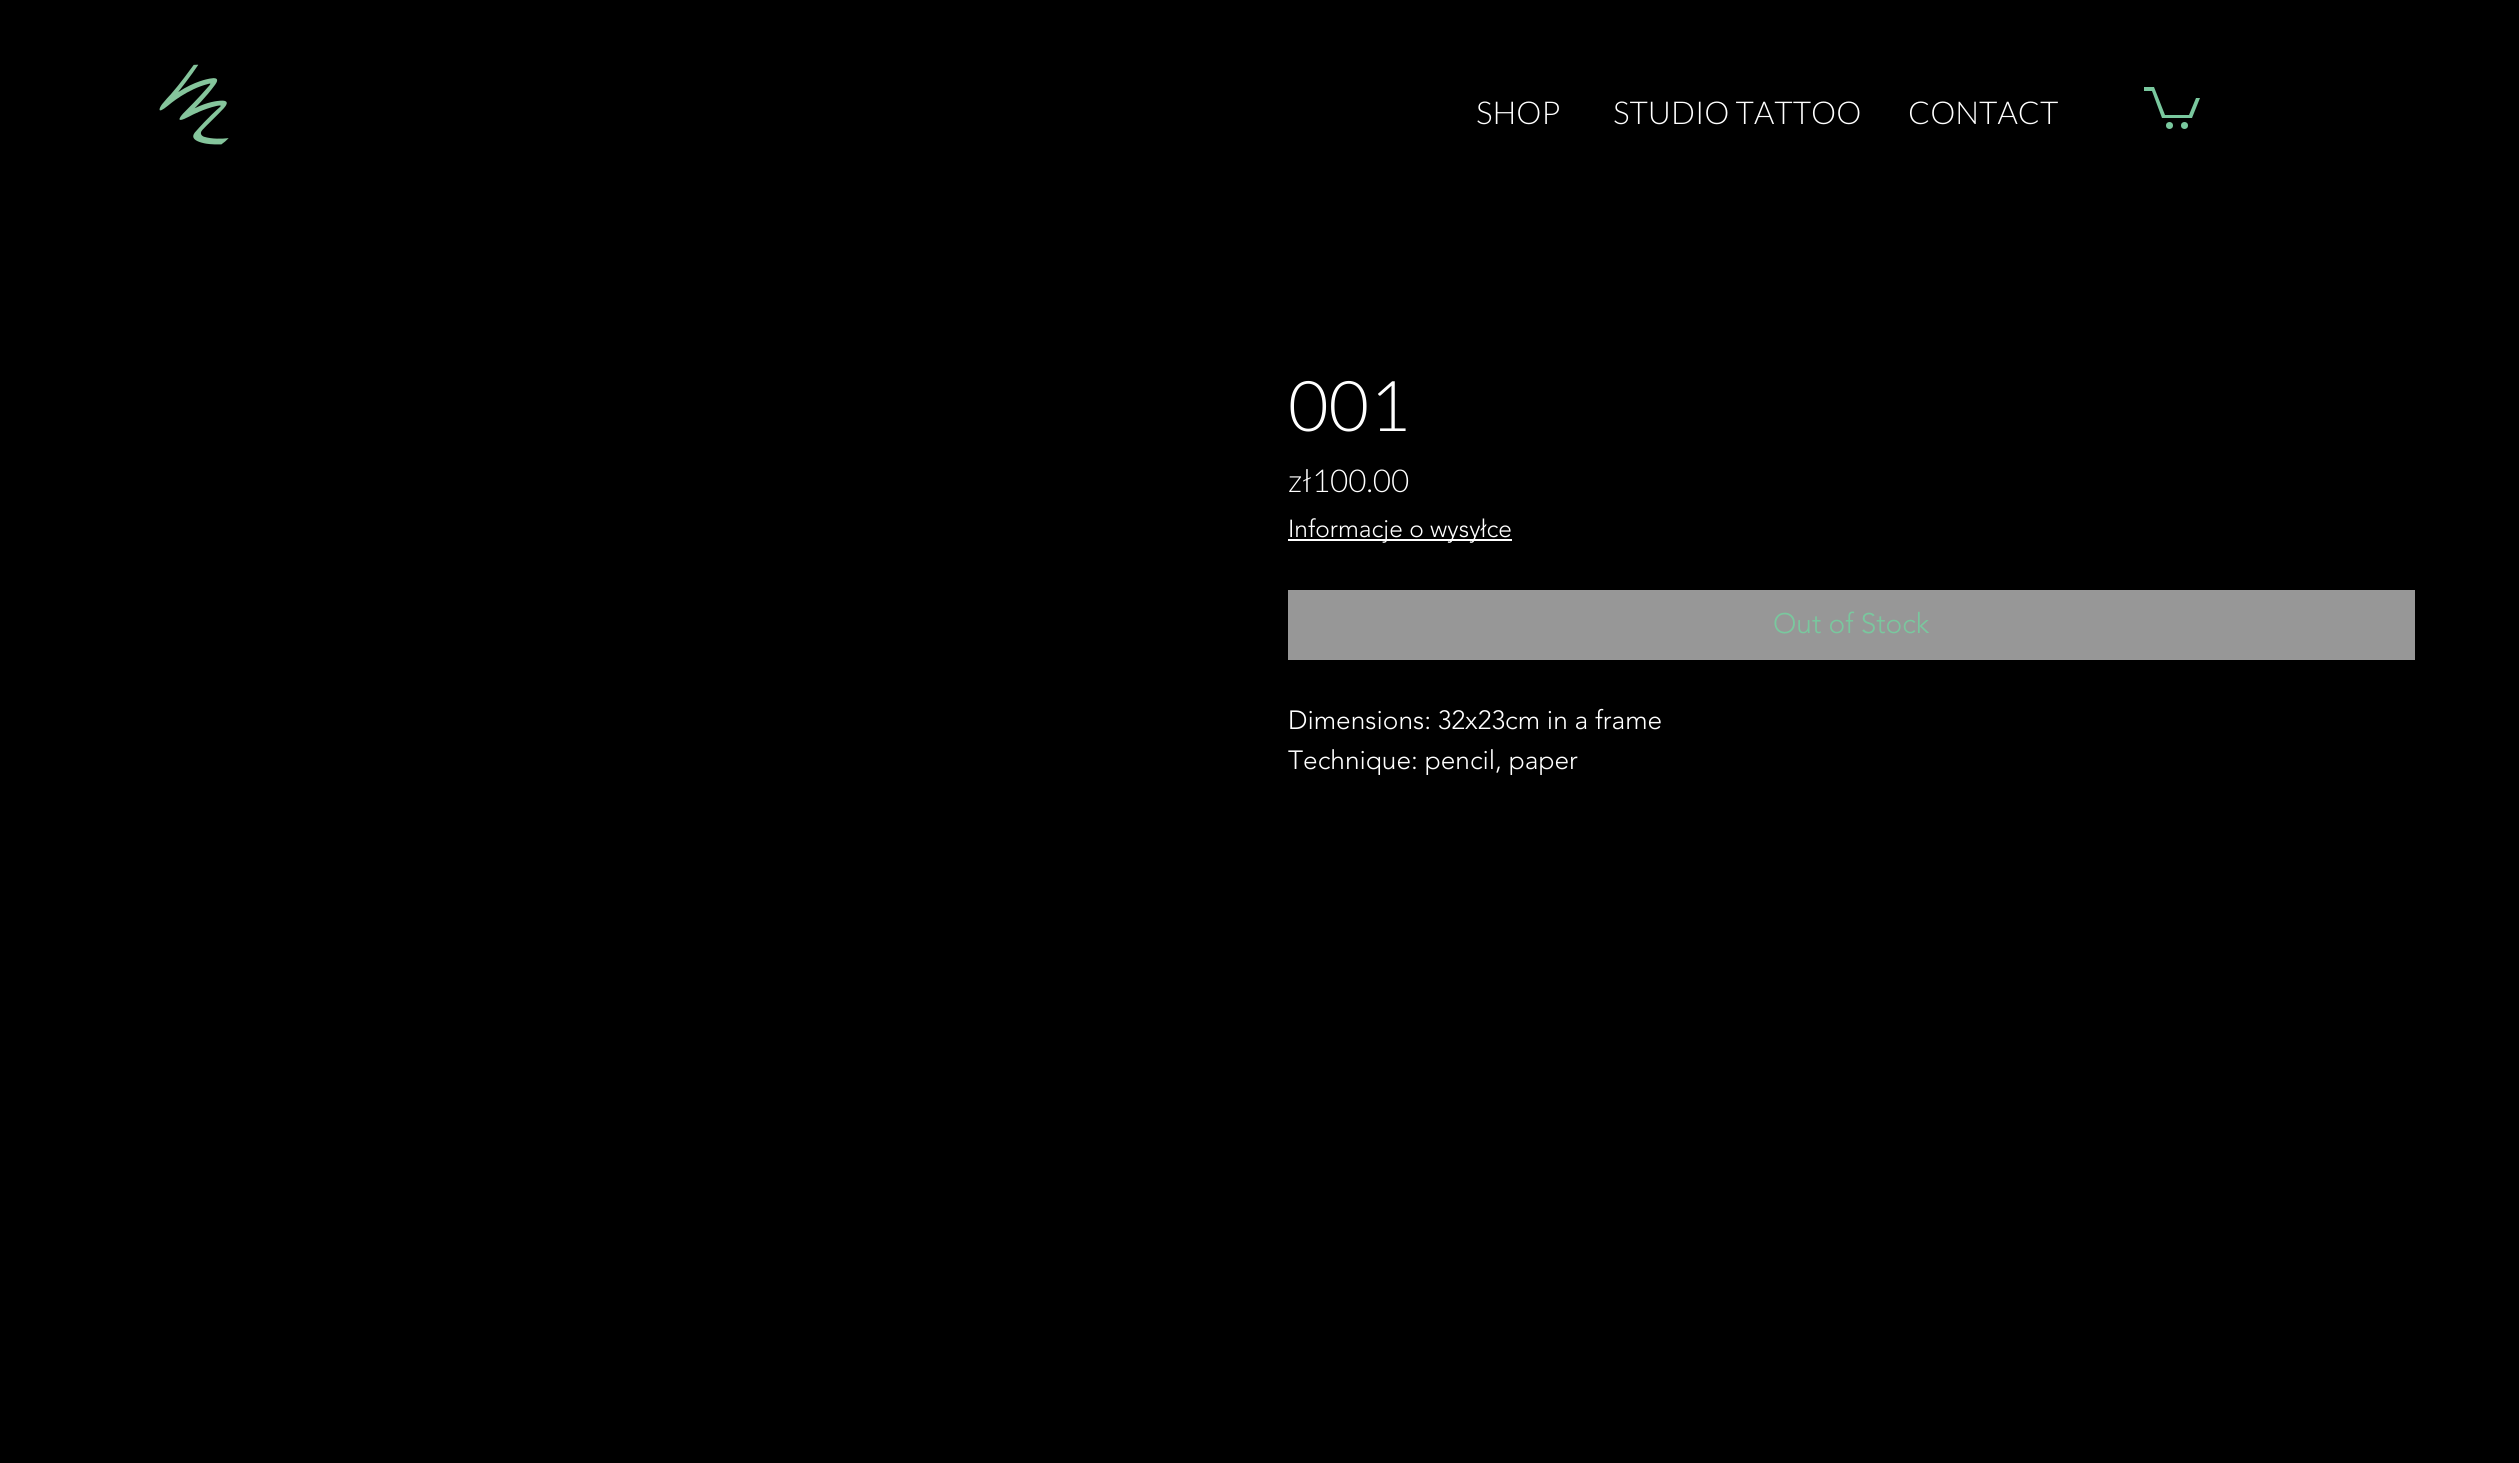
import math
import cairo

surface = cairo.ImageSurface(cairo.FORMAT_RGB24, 2519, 1463)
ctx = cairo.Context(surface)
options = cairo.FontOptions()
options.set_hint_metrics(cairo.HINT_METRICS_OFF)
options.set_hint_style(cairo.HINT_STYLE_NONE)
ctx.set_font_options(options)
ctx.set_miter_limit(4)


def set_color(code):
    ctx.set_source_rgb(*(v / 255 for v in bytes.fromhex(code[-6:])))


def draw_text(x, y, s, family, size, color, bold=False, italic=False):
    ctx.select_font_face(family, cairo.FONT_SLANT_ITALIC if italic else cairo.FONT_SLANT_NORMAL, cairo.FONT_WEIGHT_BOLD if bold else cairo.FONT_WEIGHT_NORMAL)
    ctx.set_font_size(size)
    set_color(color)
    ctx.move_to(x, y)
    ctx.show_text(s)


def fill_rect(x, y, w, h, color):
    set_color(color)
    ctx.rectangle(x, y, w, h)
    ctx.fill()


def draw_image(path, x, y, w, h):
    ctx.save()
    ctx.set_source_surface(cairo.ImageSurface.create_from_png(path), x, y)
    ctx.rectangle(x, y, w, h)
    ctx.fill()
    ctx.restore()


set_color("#000000")
ctx.paint()
draw_image("assets/img1.png", 159, 64, 70, 81)
draw_text(1476, 124, "SHOP", "Lato Light", 31.5, "#ffffff")
draw_text(1613, 124, "STUDIO TATTOO", "Lato Light", 31.5, "#ffffff")
draw_text(1908, 124, "CONTACT", "Lato Light", 31.5, "#ffffff")
set_color("#79c89e")
ctx.new_path()
ctx.move_to(2200, 98)
ctx.line_to(2192, 118)
ctx.line_to(2162, 118)
ctx.line_to(2152, 91)
ctx.line_to(2144, 91)
ctx.line_to(2144, 87)
ctx.line_to(2154, 87)
ctx.line_to(2165, 115)
ctx.line_to(2189, 115)
ctx.line_to(2196, 98)
ctx.fill()
ctx.arc(2184.5, 125.5, 3.5, 0, 2 * math.pi)
ctx.fill()
ctx.arc(2169.5, 125.5, 3.5, 0, 2 * math.pi)
ctx.fill()
draw_text(1288, 431, "001", "Lato Light", 70, "#ffffff")
draw_text(1288, 492, "zł100.00", "Lato Light", 31.5, "#ffffff")
fill_rect(1288, 539, 224, 2, "#ffffff")
draw_text(1288, 537, "Informacje o wysyłce", "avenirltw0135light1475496 Light", 24.5, "#ffffff")
fill_rect(1288, 590, 1127, 70, "#979797")
draw_text(1773, 633, "Out of Stock", "avenirltw0135light1475496 Light", 28, "#79c89e")
draw_text(1288, 729, "Dimensions: 32x23cm in a frame", "avenirltw0135light1475496 Light", 26.25, "#ffffff")
draw_text(1288, 769, "Technique: pencil, paper", "avenirltw0135light1475496 Light", 26.25, "#ffffff")
surface.write_to_png("output.png")
